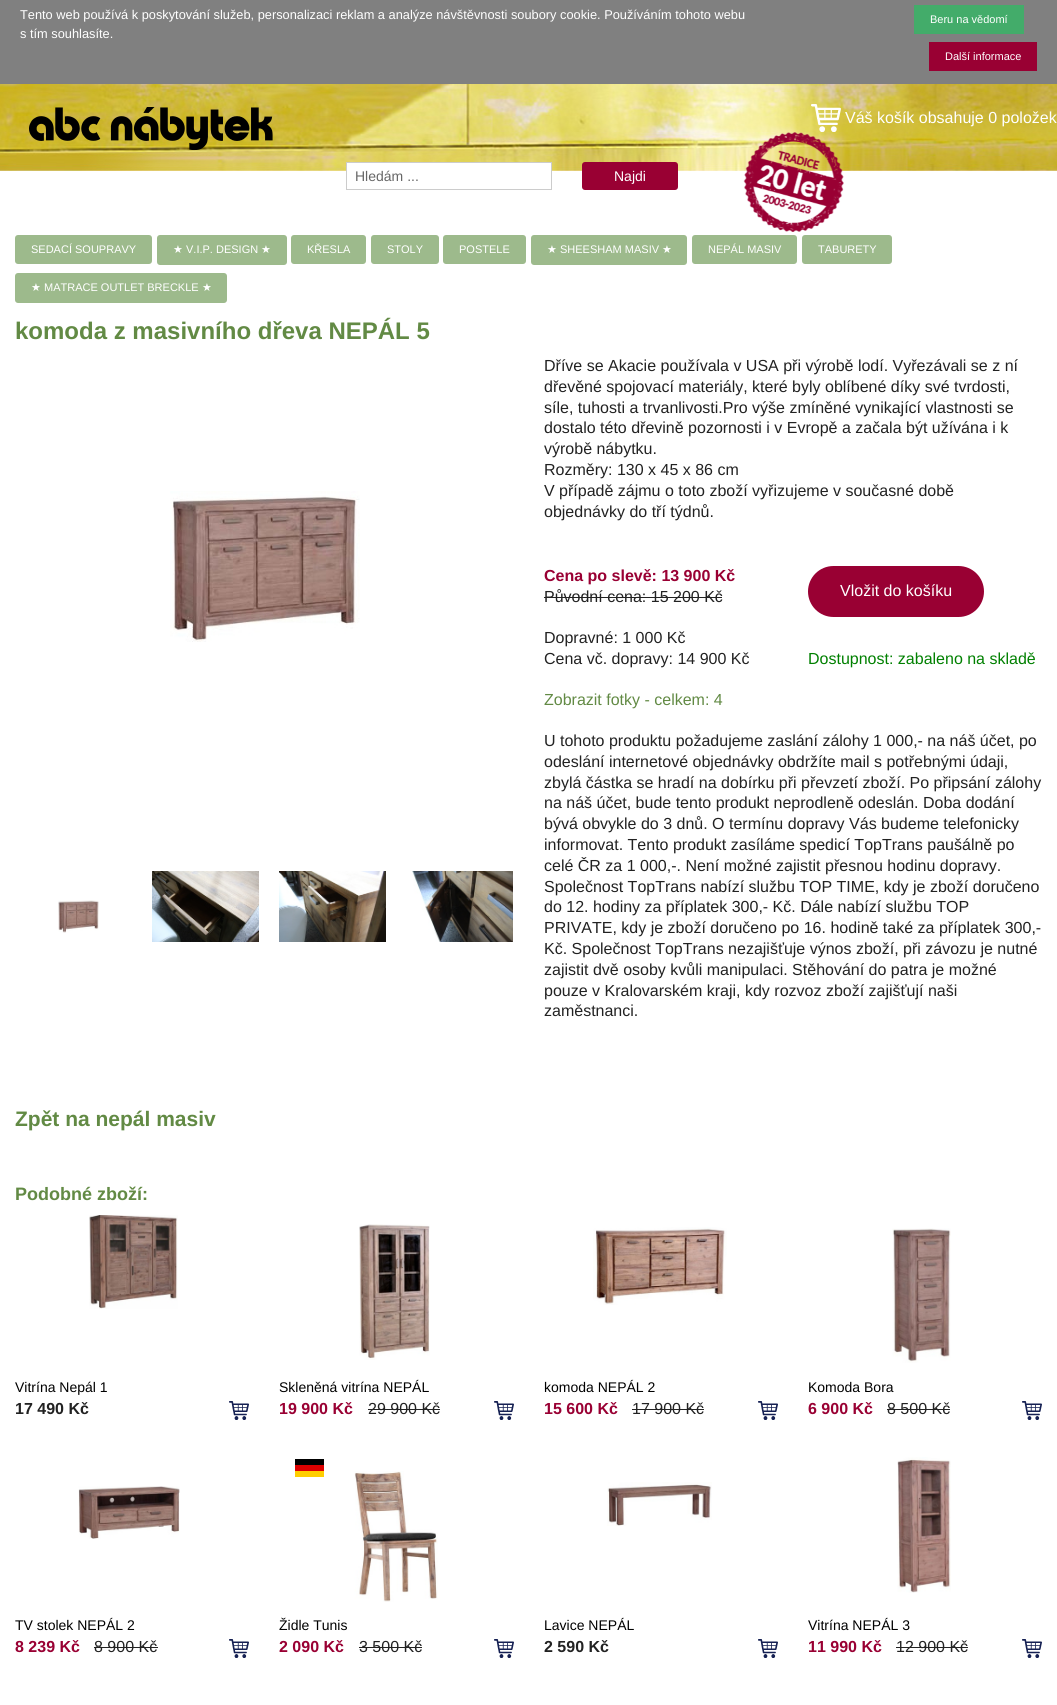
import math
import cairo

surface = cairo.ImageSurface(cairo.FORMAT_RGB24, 1057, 1705)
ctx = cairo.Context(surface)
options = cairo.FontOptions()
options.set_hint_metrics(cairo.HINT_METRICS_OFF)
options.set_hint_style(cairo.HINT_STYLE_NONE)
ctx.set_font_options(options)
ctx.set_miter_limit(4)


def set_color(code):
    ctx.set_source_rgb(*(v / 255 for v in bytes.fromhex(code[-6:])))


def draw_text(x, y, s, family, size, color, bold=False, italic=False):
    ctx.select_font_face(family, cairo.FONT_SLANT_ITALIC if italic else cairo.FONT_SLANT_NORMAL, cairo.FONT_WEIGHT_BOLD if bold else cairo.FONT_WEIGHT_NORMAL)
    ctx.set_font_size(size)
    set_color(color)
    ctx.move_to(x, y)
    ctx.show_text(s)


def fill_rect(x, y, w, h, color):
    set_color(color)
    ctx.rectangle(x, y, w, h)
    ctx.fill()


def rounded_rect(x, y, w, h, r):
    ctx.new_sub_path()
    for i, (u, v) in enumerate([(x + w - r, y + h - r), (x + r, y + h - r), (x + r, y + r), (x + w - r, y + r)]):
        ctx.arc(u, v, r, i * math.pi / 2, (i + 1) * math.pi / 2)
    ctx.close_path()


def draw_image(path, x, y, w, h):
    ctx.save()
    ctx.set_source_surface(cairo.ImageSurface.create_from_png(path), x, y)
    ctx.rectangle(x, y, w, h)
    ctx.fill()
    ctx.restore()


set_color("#ffffff")
ctx.paint()
fill_rect(0, 0, 1057, 84, "#808080")
draw_text(20, 19, "Tento web používá k poskytování služeb, personalizaci reklam a analýze návštěvnosti soubory cookie. Používáním tohoto webu", "Liberation Sans", 12.8, "#ffffff")
draw_text(20, 38, "s tím souhlasíte.", "Liberation Sans", 12.8, "#ffffff")
fill_rect(914, 5, 110, 29, "#43ac6a")
draw_text(930, 23, "Beru na vědomí", "Liberation Sans", 11, "#ffffff")
fill_rect(929, 42, 108, 29, "#990033")
draw_text(945, 60, "Další informace", "Liberation Sans", 11, "#ffffff")
draw_image("assets/img1.png", 0, 84, 1057, 87)
draw_image("assets/img2.png", 29, 107, 244, 43)
draw_image("assets/img3.png", 811, 104, 30, 28)
draw_text(845, 123, "Váš košík obsahuje 0 položek", "Liberation Sans", 16, "#ffffff")
fill_rect(347, 163, 204, 8, "#ffffff")
ctx.rectangle(346.5, 162.5, 205, 27)
set_color("#cccccc")
ctx.set_line_width(1)
ctx.stroke()
draw_text(355, 181, "Hledám ...", "Liberation Sans", 14, "#666666")
set_color("#990033")
rounded_rect(582, 162, 96, 28, 3)
ctx.fill()
draw_text(614, 181, "Najdi", "Liberation Sans", 14, "#ffffff")
draw_image("assets/img4.png", 743, 132, 101, 100)
set_color("#9dba8c")
rounded_rect(15, 235, 137, 29, 3)
ctx.fill()
draw_text(31, 253, "SEDACÍ SOUPRAVY", "Liberation Sans", 11, "#ffffff")
set_color("#9dba8c")
rounded_rect(157, 235, 130, 30, 3)
ctx.fill()
draw_text(173, 253, "★", "DejaVu Sans", 11, "#ffffff")
draw_text(186, 253, "V.I.P. DESIGN", "Liberation Sans", 11, "#ffffff")
draw_text(261, 253, "★", "DejaVu Sans", 11, "#ffffff")
set_color("#9dba8c")
rounded_rect(291, 235, 75, 29, 3)
ctx.fill()
draw_text(307, 253, "KŘESLA", "Liberation Sans", 11, "#ffffff")
set_color("#9dba8c")
rounded_rect(371, 235, 68, 29, 3)
ctx.fill()
draw_text(387, 253, "STOLY", "Liberation Sans", 11, "#ffffff")
set_color("#9dba8c")
rounded_rect(443, 235, 83, 29, 3)
ctx.fill()
draw_text(459, 253, "POSTELE", "Liberation Sans", 11, "#ffffff")
set_color("#9dba8c")
rounded_rect(531, 235, 156, 30, 3)
ctx.fill()
draw_text(547, 253, "★", "DejaVu Sans", 11, "#ffffff")
draw_text(560, 253, "SHEESHAM MASIV", "Liberation Sans", 11, "#ffffff")
draw_text(662, 253, "★", "DejaVu Sans", 11, "#ffffff")
set_color("#9dba8c")
rounded_rect(692, 235, 105, 29, 3)
ctx.fill()
draw_text(708, 253, "NEPÁL MASIV", "Liberation Sans", 11, "#ffffff")
set_color("#9dba8c")
rounded_rect(802, 235, 90, 29, 3)
ctx.fill()
draw_text(818, 253, "TABURETY", "Liberation Sans", 11, "#ffffff")
set_color("#9dba8c")
rounded_rect(15, 273, 212, 30, 3)
ctx.fill()
draw_text(31, 291, "★", "DejaVu Sans", 11, "#ffffff")
draw_text(44, 291, "MATRACE OUTLET BRECKLE", "Liberation Sans", 11, "#ffffff")
draw_text(202, 291, "★", "DejaVu Sans", 11, "#ffffff")
draw_text(15, 339, "komoda z masivního dřeva NEPÁL 5", "Liberation Sans", 24, "#628a44", bold=True)
draw_image("assets/img5.png", 170, 491, 190, 151)
draw_image("assets/img6.png", 58, 900, 41, 33)
draw_image("assets/img7.png", 152, 871, 107, 71)
draw_image("assets/img8.png", 279, 871, 107, 71)
draw_image("assets/img9.png", 412, 871, 101, 71)
draw_text(544, 371, "Dříve se Akacie používala v USA při výrobě lodí. Vyřezávali se z ní", "Liberation Sans", 16, "#222222")
draw_text(544, 392, "dřevěné spojovací materiály, které byly oblíbené díky své tvrdosti,", "Liberation Sans", 16, "#222222")
draw_text(544, 413, "síle, tuhosti a trvanlivosti.Pro výše zmíněné vynikající vlastnosti se", "Liberation Sans", 16, "#222222")
draw_text(544, 433, "dostalo této dřevině pozornosti i v Evropě a začala být užívána i k", "Liberation Sans", 16, "#222222")
draw_text(544, 454, "výrobě nábytku.", "Liberation Sans", 16, "#222222")
draw_text(544, 475, "Rozměry: 130 x 45 x 86 cm", "Liberation Sans", 16, "#222222")
draw_text(544, 496, "V případě zájmu o toto zboží vyřizujeme v současné době", "Liberation Sans", 16, "#222222")
draw_text(544, 517, "objednávky do tří týdnů.", "Liberation Sans", 16, "#222222")
draw_text(544, 581, "Cena po slevě: 13 900 Kč", "Liberation Sans", 16, "#990033", bold=True)
draw_text(544, 602, "Původní cena: 15 200 Kč", "Liberation Sans", 16, "#222222")
fill_rect(544, 597, 178, 1, "#222222")
draw_text(544, 643, "Dopravné: 1 000 Kč", "Liberation Sans", 16, "#222222")
draw_text(544, 664, "Cena vč. dopravy: 14 900 Kč", "Liberation Sans", 16, "#222222")
set_color("#990033")
rounded_rect(808, 566, 176, 51, 25.5)
ctx.fill()
draw_text(840, 596, "Vložit do košíku", "Liberation Sans", 16, "#ffffff")
draw_text(808, 664, "Dostupnost: zabaleno na skladě", "Liberation Sans", 16, "#008000")
draw_text(544, 705, "Zobrazit fotky - celkem: 4", "Liberation Sans", 16, "#628a44")
draw_text(544, 746, "U tohoto produktu požadujeme zaslání zálohy 1 000,- na náš účet, po", "Liberation Sans", 16, "#222222")
draw_text(544, 767, "odeslání internetové objednávky obdržíte mail s potřebnými údaji,", "Liberation Sans", 16, "#222222")
draw_text(544, 788, "zbylá částka se hradí na dobírku při převzetí zboží. Po připsání zálohy", "Liberation Sans", 16, "#222222")
draw_text(544, 808, "na náš účet, bude tento produkt neprodleně odeslán. Doba dodání", "Liberation Sans", 16, "#222222")
draw_text(544, 829, "bývá obvykle do 3 dnů. O termínu dopravy Vás budeme telefonicky", "Liberation Sans", 16, "#222222")
draw_text(544, 850, "informovat. Tento produkt zasíláme spedicí TopTrans paušálně po", "Liberation Sans", 16, "#222222")
draw_text(544, 871, "celé ČR za 1 000,-. Není možné zajistit přesnou hodinu dopravy.", "Liberation Sans", 16, "#222222")
draw_text(544, 892, "Společnost TopTrans nabízí službu TOP TIME, kdy je zboží doručeno", "Liberation Sans", 16, "#222222")
draw_text(544, 912, "do 12. hodiny za příplatek 300,- Kč. Dále nabízí službu TOP", "Liberation Sans", 16, "#222222")
draw_text(544, 933, "PRIVATE, kdy je zboží doručeno po 16. hodině také za příplatek 300,-", "Liberation Sans", 16, "#222222")
draw_text(544, 954, "Kč. Společnost TopTrans nezajišťuje výnos zboží, při závozu je nutné", "Liberation Sans", 16, "#222222")
draw_text(544, 975, "zajistit dvě osoby kvůli manipulaci. Stěhování do patra je možné", "Liberation Sans", 16, "#222222")
draw_text(544, 996, "pouze v Kralovarském kraji, kdy rozvoz zboží zajišťují naši", "Liberation Sans", 16, "#222222")
draw_text(544, 1016, "zaměstnanci.", "Liberation Sans", 16, "#222222")
draw_text(15, 1126, "Zpět na nepál masiv", "Liberation Sans", 21, "#628a44", bold=True)
draw_text(15, 1200, "Podobné zboží:", "Liberation Sans", 18, "#628a44", bold=True)
draw_image("assets/img10.png", 89, 1215, 89, 94)
draw_text(15, 1392, "Vitrína Nepál 1", "Liberation Sans", 14, "#000000")
draw_text(15, 1414, "17 490 Kč", "Liberation Sans", 16, "#222222", bold=True)
draw_image("assets/img11.png", 229, 1401, 20, 19)
draw_image("assets/img12.png", 359, 1224, 71, 136)
draw_text(279, 1392, "Skleněná vitrína NEPÁL", "Liberation Sans", 14, "#000000")
draw_text(279, 1414, "19 900 Kč", "Liberation Sans", 16, "#990033", bold=True)
draw_text(368, 1414, "29 900 Kč", "Liberation Sans", 16, "#222222")
fill_rect(368, 1409, 72, 1, "#222222")
draw_image("assets/img11.png", 494, 1401, 20, 19)
draw_image("assets/img13.png", 593, 1227, 134, 78)
draw_text(544, 1392, "komoda NEPÁL 2", "Liberation Sans", 14, "#000000")
draw_text(544, 1414, "15 600 Kč", "Liberation Sans", 16, "#990033", bold=True)
draw_text(632, 1414, "17 900 Kč", "Liberation Sans", 16, "#222222")
fill_rect(632, 1409, 72, 1, "#222222")
draw_image("assets/img11.png", 758, 1401, 20, 19)
draw_image("assets/img14.png", 892, 1228, 59, 135)
draw_text(808, 1392, "Komoda Bora", "Liberation Sans", 14, "#000000")
draw_text(808, 1414, "6 900 Kč", "Liberation Sans", 16, "#990033", bold=True)
draw_text(887, 1414, "8 500 Kč", "Liberation Sans", 16, "#222222")
fill_rect(887, 1409, 63, 1, "#222222")
draw_image("assets/img11.png", 1022, 1401, 20, 19)
draw_image("assets/img15.png", 78, 1486, 102, 53)
draw_text(15, 1630, "TV stolek NEPÁL 2", "Liberation Sans", 14, "#000000")
draw_text(15, 1652, "8 239 Kč", "Liberation Sans", 16, "#990033", bold=True)
draw_text(94, 1652, "8 900 Kč", "Liberation Sans", 16, "#222222")
fill_rect(94, 1647, 64, 1, "#222222")
draw_image("assets/img11.png", 229, 1639, 20, 19)
fill_rect(295, 1459, 29, 6, "#000000")
fill_rect(295, 1465, 29, 6, "#dd0000")
fill_rect(295, 1471, 29, 6, "#ffce00")
draw_image("assets/img16.png", 354, 1471, 84, 131)
draw_text(279, 1630, "Židle Tunis", "Liberation Sans", 14, "#000000")
draw_text(279, 1652, "2 090 Kč", "Liberation Sans", 16, "#990033", bold=True)
draw_text(359, 1652, "3 500 Kč", "Liberation Sans", 16, "#222222")
fill_rect(359, 1647, 63, 1, "#222222")
draw_image("assets/img11.png", 494, 1639, 20, 19)
draw_image("assets/img17.png", 607, 1482, 105, 44)
draw_text(544, 1630, "Lavice NEPÁL", "Liberation Sans", 14, "#000000")
draw_text(544, 1652, "2 590 Kč", "Liberation Sans", 16, "#222222", bold=True)
draw_image("assets/img11.png", 758, 1639, 20, 19)
draw_image("assets/img18.png", 897, 1457, 54, 136)
draw_text(808, 1630, "Vitrína NEPÁL 3", "Liberation Sans", 14, "#000000")
draw_text(808, 1652, "11 990 Kč", "Liberation Sans", 16, "#990033", bold=True)
draw_text(896, 1652, "12 900 Kč", "Liberation Sans", 16, "#222222")
fill_rect(896, 1647, 72, 1, "#222222")
draw_image("assets/img11.png", 1022, 1639, 20, 19)
surface.write_to_png("output.png")
